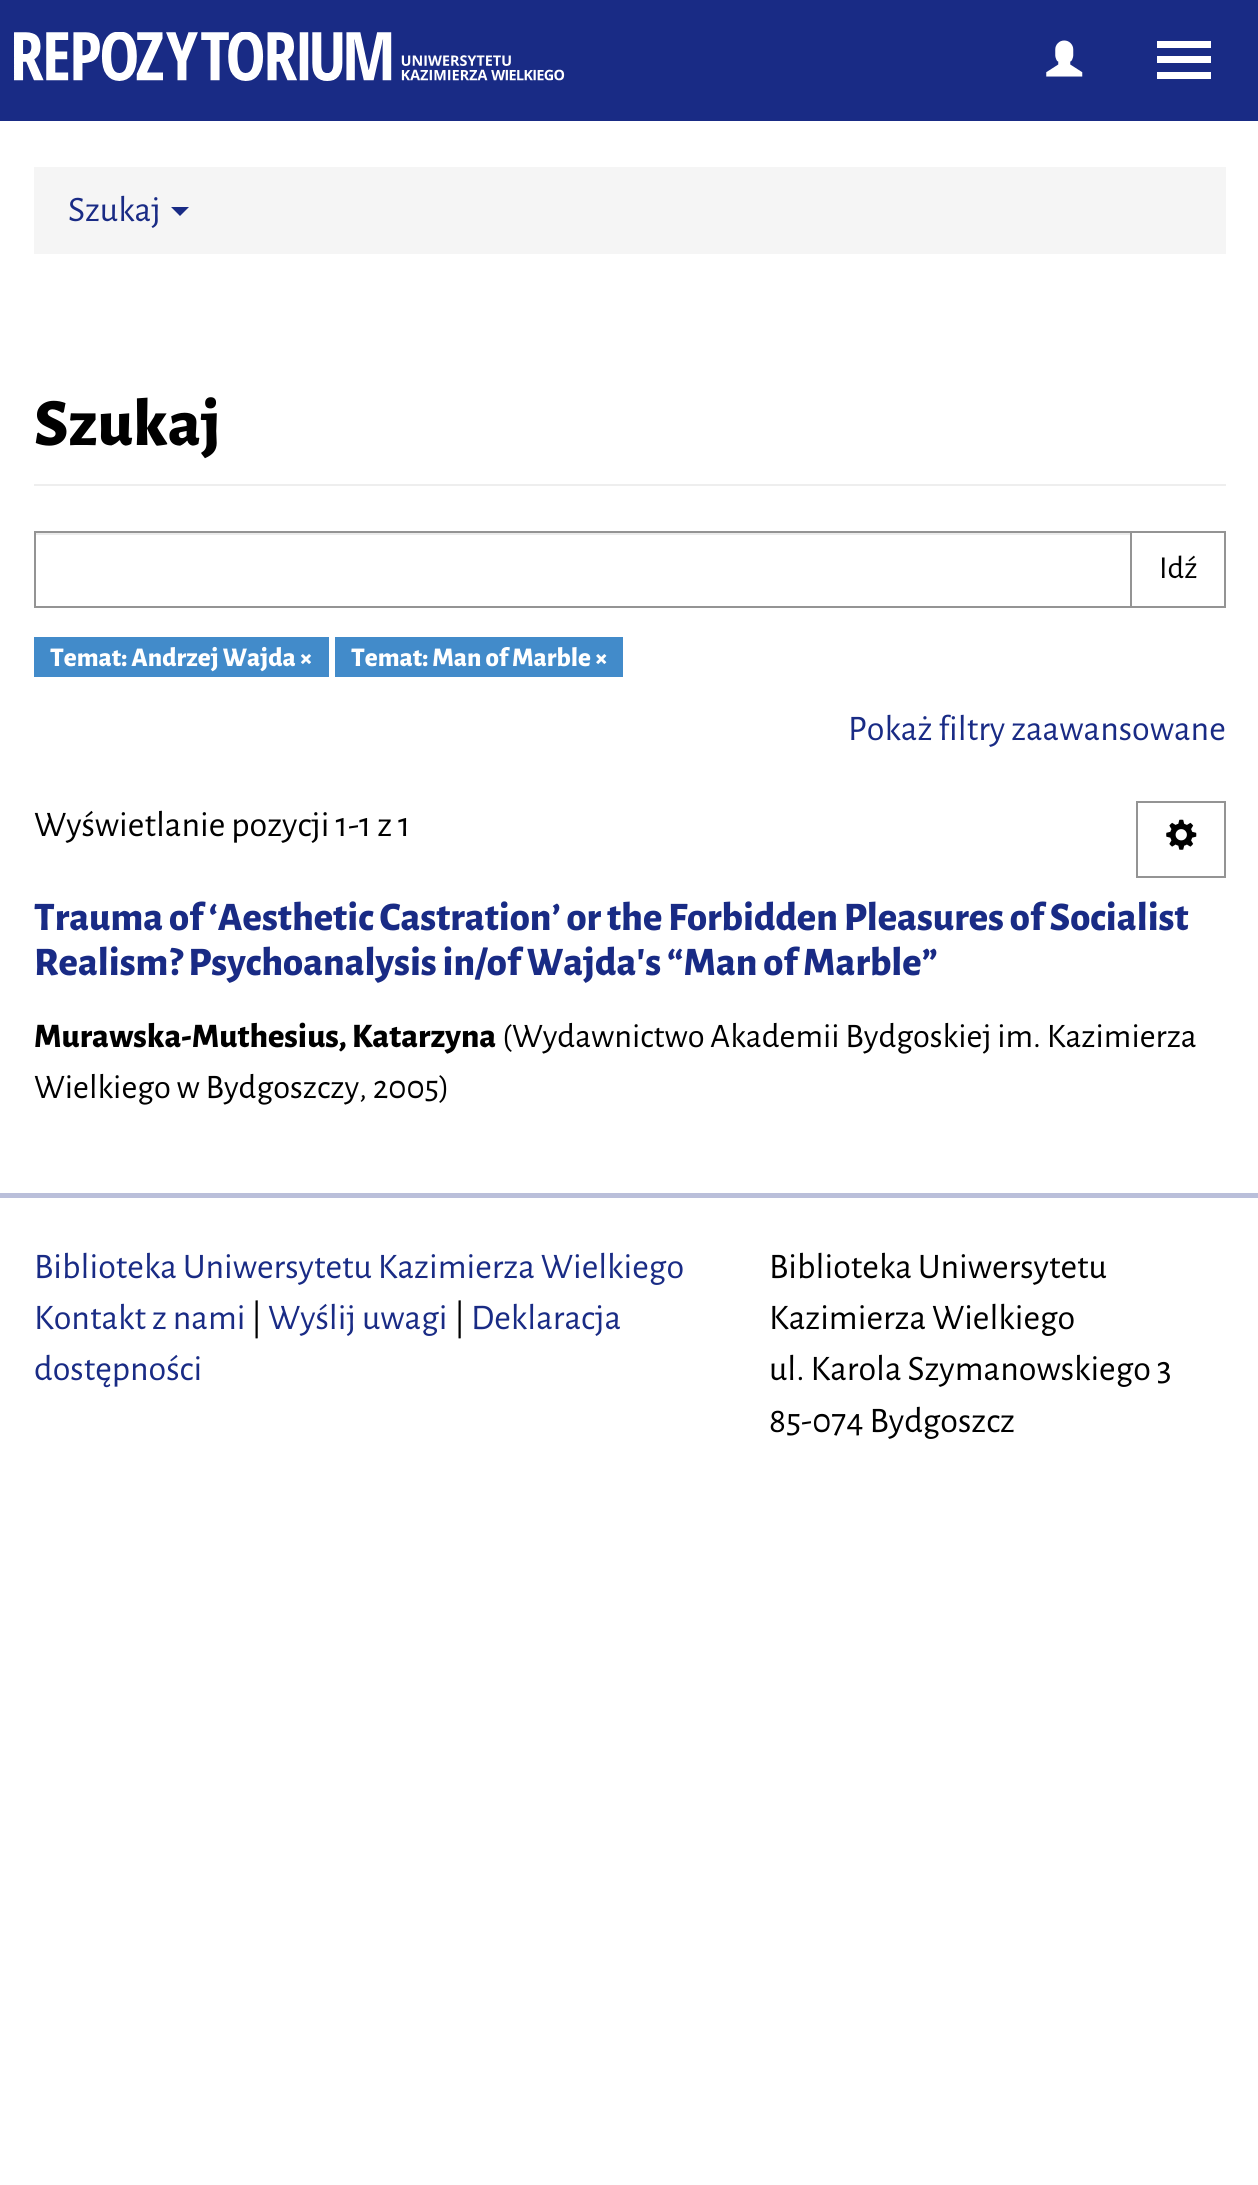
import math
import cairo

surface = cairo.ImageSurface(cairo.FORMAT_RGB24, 1258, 2185)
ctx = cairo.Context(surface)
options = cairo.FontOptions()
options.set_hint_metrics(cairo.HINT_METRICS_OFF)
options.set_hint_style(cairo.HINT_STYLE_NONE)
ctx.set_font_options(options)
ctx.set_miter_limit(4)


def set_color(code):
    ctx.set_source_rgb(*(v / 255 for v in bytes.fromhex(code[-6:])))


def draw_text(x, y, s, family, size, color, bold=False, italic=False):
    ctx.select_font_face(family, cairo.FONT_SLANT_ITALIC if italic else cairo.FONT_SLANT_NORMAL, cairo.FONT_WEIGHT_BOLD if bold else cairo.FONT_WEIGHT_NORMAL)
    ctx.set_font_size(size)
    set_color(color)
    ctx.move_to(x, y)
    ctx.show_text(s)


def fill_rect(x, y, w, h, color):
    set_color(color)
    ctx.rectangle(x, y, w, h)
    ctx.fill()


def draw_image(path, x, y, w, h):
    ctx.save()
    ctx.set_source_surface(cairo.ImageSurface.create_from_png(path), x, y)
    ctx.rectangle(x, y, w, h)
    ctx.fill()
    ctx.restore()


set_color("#ffffff")
ctx.paint()
fill_rect(0, 0, 1258, 121, "#192b85")
draw_image("assets/img1.png", 14, 32, 551, 49)
draw_image("assets/img2.png", 1046, 40, 37, 37)
fill_rect(1157, 41, 54, 7, "#ffffff")
fill_rect(1157, 56, 54, 7, "#ffffff")
fill_rect(1157, 72, 54, 7, "#ffffff")
fill_rect(34, 167, 1192, 87, "#f5f5f5")
draw_text(68, 221, "Szukaj", "Alegreya Sans", 36, "#192b85")
ctx.new_path()
ctx.move_to(171, 207)
ctx.line_to(189, 207)
ctx.line_to(180, 216)
ctx.close_path()
ctx.fill()
fill_rect(34, 484, 1192, 2, "#eeeeee")
draw_text(34, 445, "Szukaj", "Alegreya Sans ExtraBold", 67.5, "#000000")
fill_rect(36, 533, 1094, 2, "#ececec")
ctx.rectangle(1131, 532, 94, 75)
set_color("#949494")
ctx.stroke()
ctx.rectangle(35, 532, 1096, 75)
ctx.stroke()
draw_text(1159, 578, "Idź", "Alegreya Sans", 32, "#000000")
fill_rect(34, 637, 295, 40, "#428bca")
draw_text(50, 666, "Temat: Andrzej Wajda ×", "Alegreya Sans ExtraBold", 27, "#ffffff")
fill_rect(335, 637, 288, 40, "#428bca")
draw_text(351, 666, "Temat: Man of Marble ×", "Alegreya Sans ExtraBold", 27, "#ffffff")
draw_text(848, 740, "Pokaż filtry zaawansowane", "Alegreya Sans", 36, "#192b85")
draw_text(34, 836, "Wyświetlanie pozycji 1-1 z 1", "Alegreya Sans", 36, "#000000")
ctx.rectangle(1137, 802, 88, 75)
set_color("#949494")
ctx.stroke()
draw_image("assets/img3.png", 1166, 819, 31, 31)
draw_text(34, 930, "Trauma of ‘Aesthetic Castration’ or the Forbidden Pleasures of Socialist", "Alegreya Sans ExtraBold", 40.5, "#192b85")
draw_text(34, 975, "Realism? Psychoanalysis in/of Wajda's “Man of Marble”", "Alegreya Sans ExtraBold", 40.5, "#192b85")
draw_text(34, 1047, "Murawska-Muthesius, Katarzyna", "Alegreya Sans ExtraBold", 34.4, "#000000")
draw_text(502, 1047, "(Wydawnictwo Akademii Bydgoskiej im. Kazimierza", "Alegreya Sans", 34.4, "#000000")
draw_text(34, 1098, "Wielkiego w Bydgoszczy, 2005)", "Alegreya Sans", 34.4, "#000000")
fill_rect(0, 1193, 1258, 5, "#babfda")
draw_text(34, 1278, "Biblioteka Uniwersytetu Kazimierza Wielkiego", "Alegreya Sans", 36, "#192b85")
draw_text(34, 1329, "Kontakt z nami", "Alegreya Sans", 36, "#192b85")
draw_text(251, 1329, "|", "Alegreya Sans", 36, "#000000")
draw_text(268, 1329, "Wyślij uwagi", "Alegreya Sans", 36, "#192b85")
draw_text(454, 1329, "|", "Alegreya Sans", 36, "#000000")
draw_text(471, 1329, "Deklaracja", "Alegreya Sans", 36, "#192b85")
draw_text(34, 1380, "dostępności", "Alegreya Sans", 36, "#192b85")
draw_text(769, 1278, "Biblioteka Uniwersytetu", "Alegreya Sans", 36, "#000000")
draw_text(769, 1329, "Kazimierza Wielkiego", "Alegreya Sans", 36, "#000000")
draw_text(769, 1380, "ul. Karola Szymanowskiego 3", "Alegreya Sans", 36, "#000000")
draw_text(769, 1432, "85-074 Bydgoszcz", "Alegreya Sans", 36, "#000000")
surface.write_to_png("output.png")
